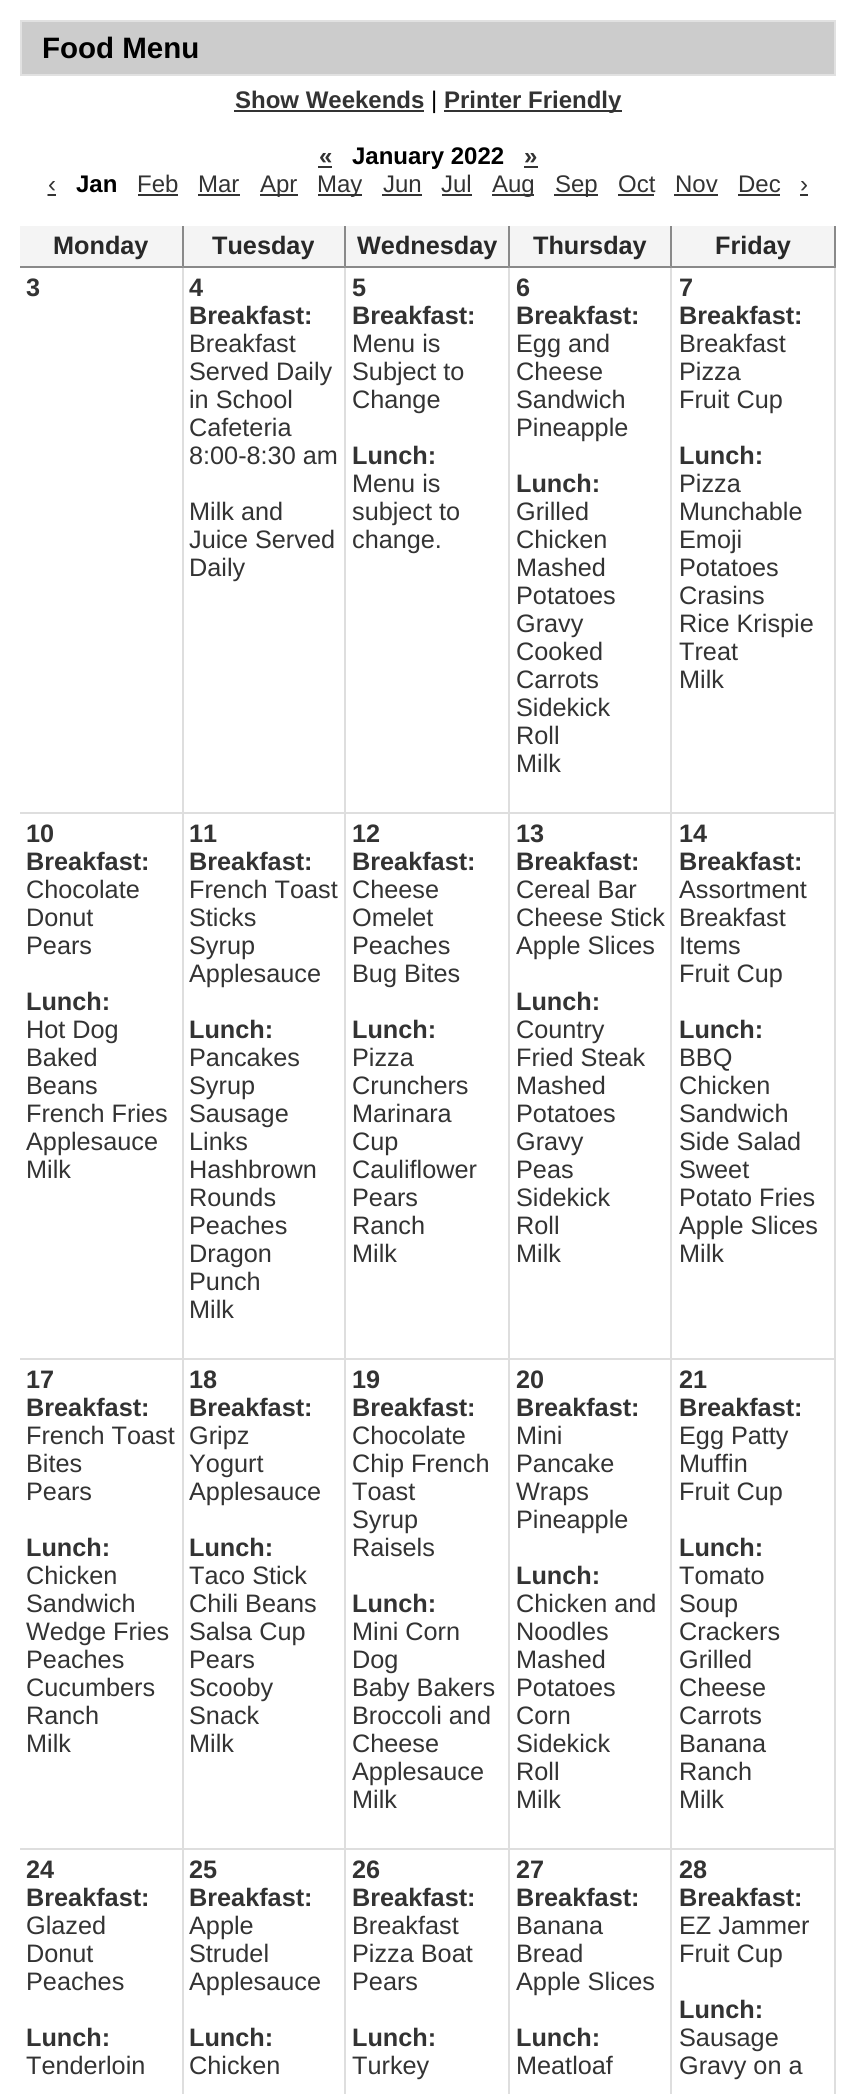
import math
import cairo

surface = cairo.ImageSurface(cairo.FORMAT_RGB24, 856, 2094)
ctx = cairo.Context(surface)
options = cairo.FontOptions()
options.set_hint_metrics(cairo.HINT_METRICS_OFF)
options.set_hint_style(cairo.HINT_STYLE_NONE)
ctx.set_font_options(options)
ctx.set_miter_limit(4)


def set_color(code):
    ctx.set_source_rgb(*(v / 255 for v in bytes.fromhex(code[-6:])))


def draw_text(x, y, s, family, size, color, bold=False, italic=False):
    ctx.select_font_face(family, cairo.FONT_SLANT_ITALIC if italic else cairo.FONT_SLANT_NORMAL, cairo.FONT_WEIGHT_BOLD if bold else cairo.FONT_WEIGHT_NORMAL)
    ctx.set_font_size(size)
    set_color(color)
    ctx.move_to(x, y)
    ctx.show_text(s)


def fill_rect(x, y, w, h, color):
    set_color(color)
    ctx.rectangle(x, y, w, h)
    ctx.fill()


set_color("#ffffff")
ctx.paint()
set_color("#cccccc")
ctx.rectangle(21, 21, 814, 54)
ctx.fill_preserve()
set_color("#e1e1e1")
ctx.stroke()
draw_text(42, 58, "Food Menu", "Liberation Sans", 29.5, "#000000", bold=True)
draw_text(235, 108, "Show Weekends", "Liberation Sans", 24, "#333333", bold=True)
fill_rect(234, 110, 190, 2, "#333333")
draw_text(431, 108, "|", "Liberation Sans", 24, "#000000")
fill_rect(444, 110, 178, 2, "#333333")
draw_text(444, 108, "Printer Friendly", "Liberation Sans", 24, "#333333", bold=True)
draw_text(319, 164, "«", "Liberation Sans", 24, "#333333", bold=True)
fill_rect(318, 166, 14, 2, "#333333")
draw_text(352, 164, "January 2022", "Liberation Sans", 24, "#000000", bold=True)
draw_text(524, 164, "»", "Liberation Sans", 24, "#333333", bold=True)
fill_rect(524, 166, 14, 2, "#333333")
draw_text(48, 192, "‹", "Liberation Sans", 24, "#333333")
ctx.new_path()
ctx.move_to(47.5, 195)
ctx.line_to(49.5, 195)
ctx.move_to(51.5, 195)
ctx.line_to(53.5, 195)
ctx.stroke()
fill_rect(48, 194, 8, 2, "#333333")
draw_text(76, 192, "Jan", "Liberation Sans", 24, "#000000", bold=True)
draw_text(137, 192, "Feb", "Liberation Sans", 24, "#333333")
fill_rect(138, 194, 40, 2, "#333333")
draw_text(198, 192, "Mar", "Liberation Sans", 24, "#333333")
fill_rect(198, 194, 42, 2, "#333333")
fill_rect(260, 194, 38, 2, "#333333")
draw_text(260, 192, "Apr", "Liberation Sans", 24, "#333333")
fill_rect(318, 194, 44, 2, "#333333")
draw_text(317, 192, "May", "Liberation Sans", 24, "#333333")
draw_text(383, 192, "Jun", "Liberation Sans", 24, "#333333")
fill_rect(382, 194, 40, 2, "#333333")
draw_text(441, 192, "Jul", "Liberation Sans", 24, "#333333")
fill_rect(442, 194, 30, 2, "#333333")
fill_rect(492, 194, 42, 2, "#333333")
draw_text(492, 192, "Aug", "Liberation Sans", 24, "#333333")
fill_rect(554, 194, 44, 2, "#333333")
draw_text(555, 192, "Sep", "Liberation Sans", 24, "#333333")
draw_text(618, 192, "Oct", "Liberation Sans", 24, "#333333")
fill_rect(618, 194, 36, 2, "#333333")
draw_text(675, 192, "Nov", "Liberation Sans", 24, "#333333")
fill_rect(674, 194, 44, 2, "#333333")
draw_text(738, 192, "Dec", "Liberation Sans", 24, "#333333")
fill_rect(738, 194, 42, 2, "#333333")
draw_text(800, 192, "›", "Liberation Sans", 24, "#333333")
fill_rect(800, 194, 8, 2, "#333333")
fill_rect(20, 226, 816, 42, "#f4f4f4")
set_color("#898989")
ctx.new_path()
ctx.move_to(184, 226)
ctx.line_to(184, 268)
ctx.line_to(182, 266)
ctx.line_to(182, 226)
ctx.close_path()
ctx.fill()
ctx.set_source_rgba(0, 0, 0, 0.44)
ctx.new_path()
ctx.move_to(184, 268)
ctx.line_to(20, 268)
ctx.line_to(20, 266)
ctx.line_to(182, 266)
ctx.close_path()
ctx.fill()
draw_text(53, 254, "Monday", "Liberation Sans", 25.25, "#282828", bold=True)
set_color("#898989")
ctx.new_path()
ctx.move_to(346, 226)
ctx.line_to(346, 268)
ctx.line_to(344, 266)
ctx.line_to(344, 226)
ctx.close_path()
ctx.fill()
ctx.set_source_rgba(0, 0, 0, 0.44)
ctx.new_path()
ctx.move_to(346, 268)
ctx.line_to(184, 268)
ctx.line_to(184, 266)
ctx.line_to(344, 266)
ctx.close_path()
ctx.fill()
draw_text(212, 254, "Tuesday", "Liberation Sans", 25.25, "#282828", bold=True)
set_color("#898989")
ctx.new_path()
ctx.move_to(510, 226)
ctx.line_to(510, 268)
ctx.line_to(508, 266)
ctx.line_to(508, 226)
ctx.close_path()
ctx.fill()
ctx.set_source_rgba(0, 0, 0, 0.44)
ctx.new_path()
ctx.move_to(510, 268)
ctx.line_to(346, 268)
ctx.line_to(346, 266)
ctx.line_to(508, 266)
ctx.close_path()
ctx.fill()
draw_text(357, 254, "Wednesday", "Liberation Sans", 25.25, "#282828", bold=True)
set_color("#898989")
ctx.new_path()
ctx.move_to(672, 226)
ctx.line_to(672, 268)
ctx.line_to(670, 266)
ctx.line_to(670, 226)
ctx.close_path()
ctx.fill()
ctx.set_source_rgba(0, 0, 0, 0.44)
ctx.new_path()
ctx.move_to(672, 268)
ctx.line_to(510, 268)
ctx.line_to(510, 266)
ctx.line_to(670, 266)
ctx.close_path()
ctx.fill()
draw_text(533, 254, "Thursday", "Liberation Sans", 25.25, "#282828", bold=True)
set_color("#898989")
ctx.new_path()
ctx.move_to(836, 226)
ctx.line_to(836, 268)
ctx.line_to(834, 266)
ctx.line_to(834, 226)
ctx.close_path()
ctx.fill()
ctx.set_source_rgba(0, 0, 0, 0.44)
ctx.new_path()
ctx.move_to(836, 268)
ctx.line_to(672, 268)
ctx.line_to(672, 266)
ctx.line_to(834, 266)
ctx.close_path()
ctx.fill()
draw_text(715, 254, "Friday", "Liberation Sans", 25.25, "#282828", bold=True)
set_color("#dedede")
ctx.new_path()
ctx.move_to(184, 268)
ctx.line_to(184, 814)
ctx.line_to(182, 812)
ctx.line_to(182, 268)
ctx.close_path()
ctx.fill()
ctx.set_source_rgba(0, 0, 0, 0.13)
ctx.new_path()
ctx.move_to(184, 814)
ctx.line_to(20, 814)
ctx.line_to(20, 812)
ctx.line_to(182, 812)
ctx.close_path()
ctx.fill()
draw_text(26, 296, "3", "Liberation Sans", 25.25, "#333333", bold=True)
set_color("#dedede")
ctx.new_path()
ctx.move_to(346, 268)
ctx.line_to(346, 814)
ctx.line_to(344, 812)
ctx.line_to(344, 268)
ctx.close_path()
ctx.fill()
ctx.set_source_rgba(0, 0, 0, 0.13)
ctx.new_path()
ctx.move_to(346, 814)
ctx.line_to(184, 814)
ctx.line_to(184, 812)
ctx.line_to(344, 812)
ctx.close_path()
ctx.fill()
draw_text(189, 296, "4", "Liberation Sans", 25.25, "#333333", bold=True)
draw_text(189, 324, "Breakfast:", "Liberation Sans", 25.25, "#333333", bold=True)
draw_text(189, 352, "Breakfast", "Liberation Sans", 25.25, "#333333")
draw_text(189, 380, "Served Daily", "Liberation Sans", 25.25, "#333333")
draw_text(189, 408, "in School", "Liberation Sans", 25.25, "#333333")
draw_text(189, 436, "Cafeteria", "Liberation Sans", 25.25, "#333333")
draw_text(189, 464, "8:00-8:30 am", "Liberation Sans", 25.25, "#333333")
draw_text(189, 520, "Milk and", "Liberation Sans", 25.25, "#333333")
draw_text(189, 548, "Juice Served", "Liberation Sans", 25.25, "#333333")
draw_text(189, 576, "Daily", "Liberation Sans", 25.25, "#333333")
set_color("#dedede")
ctx.new_path()
ctx.move_to(510, 268)
ctx.line_to(510, 814)
ctx.line_to(508, 812)
ctx.line_to(508, 268)
ctx.close_path()
ctx.fill()
ctx.set_source_rgba(0, 0, 0, 0.13)
ctx.new_path()
ctx.move_to(510, 814)
ctx.line_to(346, 814)
ctx.line_to(346, 812)
ctx.line_to(508, 812)
ctx.close_path()
ctx.fill()
draw_text(352, 296, "5", "Liberation Sans", 25.25, "#333333", bold=True)
draw_text(352, 324, "Breakfast:", "Liberation Sans", 25.25, "#333333", bold=True)
draw_text(352, 352, "Menu is", "Liberation Sans", 25.25, "#333333")
draw_text(352, 380, "Subject to", "Liberation Sans", 25.25, "#333333")
draw_text(352, 408, "Change", "Liberation Sans", 25.25, "#333333")
draw_text(352, 464, "Lunch:", "Liberation Sans", 25.25, "#333333", bold=True)
draw_text(352, 492, "Menu is", "Liberation Sans", 25.25, "#333333")
draw_text(352, 520, "subject to", "Liberation Sans", 25.25, "#333333")
draw_text(352, 548, "change.", "Liberation Sans", 25.25, "#333333")
set_color("#dedede")
ctx.new_path()
ctx.move_to(672, 268)
ctx.line_to(672, 814)
ctx.line_to(670, 812)
ctx.line_to(670, 268)
ctx.close_path()
ctx.fill()
ctx.set_source_rgba(0, 0, 0, 0.13)
ctx.new_path()
ctx.move_to(672, 814)
ctx.line_to(510, 814)
ctx.line_to(510, 812)
ctx.line_to(670, 812)
ctx.close_path()
ctx.fill()
draw_text(516, 296, "6", "Liberation Sans", 25.25, "#333333", bold=True)
draw_text(516, 324, "Breakfast:", "Liberation Sans", 25.25, "#333333", bold=True)
draw_text(516, 352, "Egg and", "Liberation Sans", 25.25, "#333333")
draw_text(516, 380, "Cheese", "Liberation Sans", 25.25, "#333333")
draw_text(516, 408, "Sandwich", "Liberation Sans", 25.25, "#333333")
draw_text(516, 436, "Pineapple", "Liberation Sans", 25.25, "#333333")
draw_text(516, 492, "Lunch:", "Liberation Sans", 25.25, "#333333", bold=True)
draw_text(516, 520, "Grilled", "Liberation Sans", 25.25, "#333333")
draw_text(516, 548, "Chicken", "Liberation Sans", 25.25, "#333333")
draw_text(516, 576, "Mashed", "Liberation Sans", 25.25, "#333333")
draw_text(516, 604, "Potatoes", "Liberation Sans", 25.25, "#333333")
draw_text(516, 632, "Gravy", "Liberation Sans", 25.25, "#333333")
draw_text(516, 660, "Cooked", "Liberation Sans", 25.25, "#333333")
draw_text(516, 688, "Carrots", "Liberation Sans", 25.25, "#333333")
draw_text(516, 716, "Sidekick", "Liberation Sans", 25.25, "#333333")
draw_text(516, 744, "Roll", "Liberation Sans", 25.25, "#333333")
draw_text(516, 772, "Milk", "Liberation Sans", 25.25, "#333333")
set_color("#dedede")
ctx.new_path()
ctx.move_to(836, 268)
ctx.line_to(836, 814)
ctx.line_to(834, 812)
ctx.line_to(834, 268)
ctx.close_path()
ctx.fill()
ctx.set_source_rgba(0, 0, 0, 0.13)
ctx.new_path()
ctx.move_to(836, 814)
ctx.line_to(672, 814)
ctx.line_to(672, 812)
ctx.line_to(834, 812)
ctx.close_path()
ctx.fill()
draw_text(679, 296, "7", "Liberation Sans", 25.25, "#333333", bold=True)
draw_text(679, 324, "Breakfast:", "Liberation Sans", 25.25, "#333333", bold=True)
draw_text(679, 352, "Breakfast", "Liberation Sans", 25.25, "#333333")
draw_text(679, 380, "Pizza", "Liberation Sans", 25.25, "#333333")
draw_text(679, 408, "Fruit Cup", "Liberation Sans", 25.25, "#333333")
draw_text(679, 464, "Lunch:", "Liberation Sans", 25.25, "#333333", bold=True)
draw_text(679, 492, "Pizza", "Liberation Sans", 25.25, "#333333")
draw_text(679, 520, "Munchable", "Liberation Sans", 25.25, "#333333")
draw_text(679, 548, "Emoji", "Liberation Sans", 25.25, "#333333")
draw_text(679, 576, "Potatoes", "Liberation Sans", 25.25, "#333333")
draw_text(679, 604, "Crasins", "Liberation Sans", 25.25, "#333333")
draw_text(679, 632, "Rice Krispie", "Liberation Sans", 25.25, "#333333")
draw_text(679, 660, "Treat", "Liberation Sans", 25.25, "#333333")
draw_text(679, 688, "Milk", "Liberation Sans", 25.25, "#333333")
set_color("#dedede")
ctx.new_path()
ctx.move_to(184, 814)
ctx.line_to(184, 1360)
ctx.line_to(182, 1358)
ctx.line_to(182, 814)
ctx.close_path()
ctx.fill()
ctx.set_source_rgba(0, 0, 0, 0.13)
ctx.new_path()
ctx.move_to(184, 1360)
ctx.line_to(20, 1360)
ctx.line_to(20, 1358)
ctx.line_to(182, 1358)
ctx.close_path()
ctx.fill()
draw_text(26, 842, "10", "Liberation Sans", 25.25, "#333333", bold=True)
draw_text(26, 870, "Breakfast:", "Liberation Sans", 25.25, "#333333", bold=True)
draw_text(26, 898, "Chocolate", "Liberation Sans", 25.25, "#333333")
draw_text(26, 926, "Donut", "Liberation Sans", 25.25, "#333333")
draw_text(26, 954, "Pears", "Liberation Sans", 25.25, "#333333")
draw_text(26, 1010, "Lunch:", "Liberation Sans", 25.25, "#333333", bold=True)
draw_text(26, 1038, "Hot Dog", "Liberation Sans", 25.25, "#333333")
draw_text(26, 1066, "Baked", "Liberation Sans", 25.25, "#333333")
draw_text(26, 1094, "Beans", "Liberation Sans", 25.25, "#333333")
draw_text(26, 1122, "French Fries", "Liberation Sans", 25.25, "#333333")
draw_text(26, 1150, "Applesauce", "Liberation Sans", 25.25, "#333333")
draw_text(26, 1178, "Milk", "Liberation Sans", 25.25, "#333333")
set_color("#dedede")
ctx.new_path()
ctx.move_to(346, 814)
ctx.line_to(346, 1360)
ctx.line_to(344, 1358)
ctx.line_to(344, 814)
ctx.close_path()
ctx.fill()
ctx.set_source_rgba(0, 0, 0, 0.13)
ctx.new_path()
ctx.move_to(346, 1360)
ctx.line_to(184, 1360)
ctx.line_to(184, 1358)
ctx.line_to(344, 1358)
ctx.close_path()
ctx.fill()
draw_text(189, 842, "11", "Liberation Sans", 25.25, "#333333", bold=True)
draw_text(189, 870, "Breakfast:", "Liberation Sans", 25.25, "#333333", bold=True)
draw_text(189, 898, "French Toast", "Liberation Sans", 25.25, "#333333")
draw_text(189, 926, "Sticks", "Liberation Sans", 25.25, "#333333")
draw_text(189, 954, "Syrup", "Liberation Sans", 25.25, "#333333")
draw_text(189, 982, "Applesauce", "Liberation Sans", 25.25, "#333333")
draw_text(189, 1038, "Lunch:", "Liberation Sans", 25.25, "#333333", bold=True)
draw_text(189, 1066, "Pancakes", "Liberation Sans", 25.25, "#333333")
draw_text(189, 1094, "Syrup", "Liberation Sans", 25.25, "#333333")
draw_text(189, 1122, "Sausage", "Liberation Sans", 25.25, "#333333")
draw_text(189, 1150, "Links", "Liberation Sans", 25.25, "#333333")
draw_text(189, 1178, "Hashbrown", "Liberation Sans", 25.25, "#333333")
draw_text(189, 1206, "Rounds", "Liberation Sans", 25.25, "#333333")
draw_text(189, 1234, "Peaches", "Liberation Sans", 25.25, "#333333")
draw_text(189, 1262, "Dragon", "Liberation Sans", 25.25, "#333333")
draw_text(189, 1290, "Punch", "Liberation Sans", 25.25, "#333333")
draw_text(189, 1318, "Milk", "Liberation Sans", 25.25, "#333333")
set_color("#dedede")
ctx.new_path()
ctx.move_to(510, 814)
ctx.line_to(510, 1360)
ctx.line_to(508, 1358)
ctx.line_to(508, 814)
ctx.close_path()
ctx.fill()
ctx.set_source_rgba(0, 0, 0, 0.13)
ctx.new_path()
ctx.move_to(510, 1360)
ctx.line_to(346, 1360)
ctx.line_to(346, 1358)
ctx.line_to(508, 1358)
ctx.close_path()
ctx.fill()
draw_text(352, 842, "12", "Liberation Sans", 25.25, "#333333", bold=True)
draw_text(352, 870, "Breakfast:", "Liberation Sans", 25.25, "#333333", bold=True)
draw_text(352, 898, "Cheese", "Liberation Sans", 25.25, "#333333")
draw_text(352, 926, "Omelet", "Liberation Sans", 25.25, "#333333")
draw_text(352, 954, "Peaches", "Liberation Sans", 25.25, "#333333")
draw_text(352, 982, "Bug Bites", "Liberation Sans", 25.25, "#333333")
draw_text(352, 1038, "Lunch:", "Liberation Sans", 25.25, "#333333", bold=True)
draw_text(352, 1066, "Pizza", "Liberation Sans", 25.25, "#333333")
draw_text(352, 1094, "Crunchers", "Liberation Sans", 25.25, "#333333")
draw_text(352, 1122, "Marinara", "Liberation Sans", 25.25, "#333333")
draw_text(352, 1150, "Cup", "Liberation Sans", 25.25, "#333333")
draw_text(352, 1178, "Cauliflower", "Liberation Sans", 25.25, "#333333")
draw_text(352, 1206, "Pears", "Liberation Sans", 25.25, "#333333")
draw_text(352, 1234, "Ranch", "Liberation Sans", 25.25, "#333333")
draw_text(352, 1262, "Milk", "Liberation Sans", 25.25, "#333333")
set_color("#dedede")
ctx.new_path()
ctx.move_to(672, 814)
ctx.line_to(672, 1360)
ctx.line_to(670, 1358)
ctx.line_to(670, 814)
ctx.close_path()
ctx.fill()
ctx.set_source_rgba(0, 0, 0, 0.13)
ctx.new_path()
ctx.move_to(672, 1360)
ctx.line_to(510, 1360)
ctx.line_to(510, 1358)
ctx.line_to(670, 1358)
ctx.close_path()
ctx.fill()
draw_text(516, 842, "13", "Liberation Sans", 25.25, "#333333", bold=True)
draw_text(516, 870, "Breakfast:", "Liberation Sans", 25.25, "#333333", bold=True)
draw_text(516, 898, "Cereal Bar", "Liberation Sans", 25.25, "#333333")
draw_text(516, 926, "Cheese Stick", "Liberation Sans", 25.25, "#333333")
draw_text(516, 954, "Apple Slices", "Liberation Sans", 25.25, "#333333")
draw_text(516, 1010, "Lunch:", "Liberation Sans", 25.25, "#333333", bold=True)
draw_text(516, 1038, "Country", "Liberation Sans", 25.25, "#333333")
draw_text(516, 1066, "Fried Steak", "Liberation Sans", 25.25, "#333333")
draw_text(516, 1094, "Mashed", "Liberation Sans", 25.25, "#333333")
draw_text(516, 1122, "Potatoes", "Liberation Sans", 25.25, "#333333")
draw_text(516, 1150, "Gravy", "Liberation Sans", 25.25, "#333333")
draw_text(516, 1178, "Peas", "Liberation Sans", 25.25, "#333333")
draw_text(516, 1206, "Sidekick", "Liberation Sans", 25.25, "#333333")
draw_text(516, 1234, "Roll", "Liberation Sans", 25.25, "#333333")
draw_text(516, 1262, "Milk", "Liberation Sans", 25.25, "#333333")
set_color("#dedede")
ctx.new_path()
ctx.move_to(836, 814)
ctx.line_to(836, 1360)
ctx.line_to(834, 1358)
ctx.line_to(834, 814)
ctx.close_path()
ctx.fill()
ctx.set_source_rgba(0, 0, 0, 0.13)
ctx.new_path()
ctx.move_to(836, 1360)
ctx.line_to(672, 1360)
ctx.line_to(672, 1358)
ctx.line_to(834, 1358)
ctx.close_path()
ctx.fill()
draw_text(679, 842, "14", "Liberation Sans", 25.25, "#333333", bold=True)
draw_text(679, 870, "Breakfast:", "Liberation Sans", 25.25, "#333333", bold=True)
draw_text(679, 898, "Assortment", "Liberation Sans", 25.25, "#333333")
draw_text(679, 926, "Breakfast", "Liberation Sans", 25.25, "#333333")
draw_text(679, 954, "Items", "Liberation Sans", 25.25, "#333333")
draw_text(679, 982, "Fruit Cup", "Liberation Sans", 25.25, "#333333")
draw_text(679, 1038, "Lunch:", "Liberation Sans", 25.25, "#333333", bold=True)
draw_text(679, 1066, "BBQ", "Liberation Sans", 25.25, "#333333")
draw_text(679, 1094, "Chicken", "Liberation Sans", 25.25, "#333333")
draw_text(679, 1122, "Sandwich", "Liberation Sans", 25.25, "#333333")
draw_text(679, 1150, "Side Salad", "Liberation Sans", 25.25, "#333333")
draw_text(679, 1178, "Sweet", "Liberation Sans", 25.25, "#333333")
draw_text(679, 1206, "Potato Fries", "Liberation Sans", 25.25, "#333333")
draw_text(679, 1234, "Apple Slices", "Liberation Sans", 25.25, "#333333")
draw_text(679, 1262, "Milk", "Liberation Sans", 25.25, "#333333")
set_color("#dedede")
ctx.new_path()
ctx.move_to(184, 1360)
ctx.line_to(184, 1850)
ctx.line_to(182, 1848)
ctx.line_to(182, 1360)
ctx.close_path()
ctx.fill()
ctx.set_source_rgba(0, 0, 0, 0.13)
ctx.new_path()
ctx.move_to(184, 1850)
ctx.line_to(20, 1850)
ctx.line_to(20, 1848)
ctx.line_to(182, 1848)
ctx.close_path()
ctx.fill()
draw_text(26, 1388, "17", "Liberation Sans", 25.25, "#333333", bold=True)
draw_text(26, 1416, "Breakfast:", "Liberation Sans", 25.25, "#333333", bold=True)
draw_text(26, 1444, "French Toast", "Liberation Sans", 25.25, "#333333")
draw_text(26, 1472, "Bites", "Liberation Sans", 25.25, "#333333")
draw_text(26, 1500, "Pears", "Liberation Sans", 25.25, "#333333")
draw_text(26, 1556, "Lunch:", "Liberation Sans", 25.25, "#333333", bold=True)
draw_text(26, 1584, "Chicken", "Liberation Sans", 25.25, "#333333")
draw_text(26, 1612, "Sandwich", "Liberation Sans", 25.25, "#333333")
draw_text(26, 1640, "Wedge Fries", "Liberation Sans", 25.25, "#333333")
draw_text(26, 1668, "Peaches", "Liberation Sans", 25.25, "#333333")
draw_text(26, 1696, "Cucumbers", "Liberation Sans", 25.25, "#333333")
draw_text(26, 1724, "Ranch", "Liberation Sans", 25.25, "#333333")
draw_text(26, 1752, "Milk", "Liberation Sans", 25.25, "#333333")
set_color("#dedede")
ctx.new_path()
ctx.move_to(346, 1360)
ctx.line_to(346, 1850)
ctx.line_to(344, 1848)
ctx.line_to(344, 1360)
ctx.close_path()
ctx.fill()
ctx.set_source_rgba(0, 0, 0, 0.13)
ctx.new_path()
ctx.move_to(346, 1850)
ctx.line_to(184, 1850)
ctx.line_to(184, 1848)
ctx.line_to(344, 1848)
ctx.close_path()
ctx.fill()
draw_text(189, 1388, "18", "Liberation Sans", 25.25, "#333333", bold=True)
draw_text(189, 1416, "Breakfast:", "Liberation Sans", 25.25, "#333333", bold=True)
draw_text(189, 1444, "Gripz", "Liberation Sans", 25.25, "#333333")
draw_text(189, 1472, "Yogurt", "Liberation Sans", 25.25, "#333333")
draw_text(189, 1500, "Applesauce", "Liberation Sans", 25.25, "#333333")
draw_text(189, 1556, "Lunch:", "Liberation Sans", 25.25, "#333333", bold=True)
draw_text(189, 1584, "Taco Stick", "Liberation Sans", 25.25, "#333333")
draw_text(189, 1612, "Chili Beans", "Liberation Sans", 25.25, "#333333")
draw_text(189, 1640, "Salsa Cup", "Liberation Sans", 25.25, "#333333")
draw_text(189, 1668, "Pears", "Liberation Sans", 25.25, "#333333")
draw_text(189, 1696, "Scooby", "Liberation Sans", 25.25, "#333333")
draw_text(189, 1724, "Snack", "Liberation Sans", 25.25, "#333333")
draw_text(189, 1752, "Milk", "Liberation Sans", 25.25, "#333333")
set_color("#dedede")
ctx.new_path()
ctx.move_to(510, 1360)
ctx.line_to(510, 1850)
ctx.line_to(508, 1848)
ctx.line_to(508, 1360)
ctx.close_path()
ctx.fill()
ctx.set_source_rgba(0, 0, 0, 0.13)
ctx.new_path()
ctx.move_to(510, 1850)
ctx.line_to(346, 1850)
ctx.line_to(346, 1848)
ctx.line_to(508, 1848)
ctx.close_path()
ctx.fill()
draw_text(352, 1388, "19", "Liberation Sans", 25.25, "#333333", bold=True)
draw_text(352, 1416, "Breakfast:", "Liberation Sans", 25.25, "#333333", bold=True)
draw_text(352, 1444, "Chocolate", "Liberation Sans", 25.25, "#333333")
draw_text(352, 1472, "Chip French", "Liberation Sans", 25.25, "#333333")
draw_text(352, 1500, "Toast", "Liberation Sans", 25.25, "#333333")
draw_text(352, 1528, "Syrup", "Liberation Sans", 25.25, "#333333")
draw_text(352, 1556, "Raisels", "Liberation Sans", 25.25, "#333333")
draw_text(352, 1612, "Lunch:", "Liberation Sans", 25.25, "#333333", bold=True)
draw_text(352, 1640, "Mini Corn", "Liberation Sans", 25.25, "#333333")
draw_text(352, 1668, "Dog", "Liberation Sans", 25.25, "#333333")
draw_text(352, 1696, "Baby Bakers", "Liberation Sans", 25.25, "#333333")
draw_text(352, 1724, "Broccoli and", "Liberation Sans", 25.25, "#333333")
draw_text(352, 1752, "Cheese", "Liberation Sans", 25.25, "#333333")
draw_text(352, 1780, "Applesauce", "Liberation Sans", 25.25, "#333333")
draw_text(352, 1808, "Milk", "Liberation Sans", 25.25, "#333333")
set_color("#dedede")
ctx.new_path()
ctx.move_to(672, 1360)
ctx.line_to(672, 1850)
ctx.line_to(670, 1848)
ctx.line_to(670, 1360)
ctx.close_path()
ctx.fill()
ctx.set_source_rgba(0, 0, 0, 0.13)
ctx.new_path()
ctx.move_to(672, 1850)
ctx.line_to(510, 1850)
ctx.line_to(510, 1848)
ctx.line_to(670, 1848)
ctx.close_path()
ctx.fill()
draw_text(516, 1388, "20", "Liberation Sans", 25.25, "#333333", bold=True)
draw_text(516, 1416, "Breakfast:", "Liberation Sans", 25.25, "#333333", bold=True)
draw_text(516, 1444, "Mini", "Liberation Sans", 25.25, "#333333")
draw_text(516, 1472, "Pancake", "Liberation Sans", 25.25, "#333333")
draw_text(516, 1500, "Wraps", "Liberation Sans", 25.25, "#333333")
draw_text(516, 1528, "Pineapple", "Liberation Sans", 25.25, "#333333")
draw_text(516, 1584, "Lunch:", "Liberation Sans", 25.25, "#333333", bold=True)
draw_text(516, 1612, "Chicken and", "Liberation Sans", 25.25, "#333333")
draw_text(516, 1640, "Noodles", "Liberation Sans", 25.25, "#333333")
draw_text(516, 1668, "Mashed", "Liberation Sans", 25.25, "#333333")
draw_text(516, 1696, "Potatoes", "Liberation Sans", 25.25, "#333333")
draw_text(516, 1724, "Corn", "Liberation Sans", 25.25, "#333333")
draw_text(516, 1752, "Sidekick", "Liberation Sans", 25.25, "#333333")
draw_text(516, 1780, "Roll", "Liberation Sans", 25.25, "#333333")
draw_text(516, 1808, "Milk", "Liberation Sans", 25.25, "#333333")
set_color("#dedede")
ctx.new_path()
ctx.move_to(836, 1360)
ctx.line_to(836, 1850)
ctx.line_to(834, 1848)
ctx.line_to(834, 1360)
ctx.close_path()
ctx.fill()
ctx.set_source_rgba(0, 0, 0, 0.13)
ctx.new_path()
ctx.move_to(836, 1850)
ctx.line_to(672, 1850)
ctx.line_to(672, 1848)
ctx.line_to(834, 1848)
ctx.close_path()
ctx.fill()
draw_text(679, 1388, "21", "Liberation Sans", 25.25, "#333333", bold=True)
draw_text(679, 1416, "Breakfast:", "Liberation Sans", 25.25, "#333333", bold=True)
draw_text(679, 1444, "Egg Patty", "Liberation Sans", 25.25, "#333333")
draw_text(679, 1472, "Muffin", "Liberation Sans", 25.25, "#333333")
draw_text(679, 1500, "Fruit Cup", "Liberation Sans", 25.25, "#333333")
draw_text(679, 1556, "Lunch:", "Liberation Sans", 25.25, "#333333", bold=True)
draw_text(679, 1584, "Tomato", "Liberation Sans", 25.25, "#333333")
draw_text(679, 1612, "Soup", "Liberation Sans", 25.25, "#333333")
draw_text(679, 1640, "Crackers", "Liberation Sans", 25.25, "#333333")
draw_text(679, 1668, "Grilled", "Liberation Sans", 25.25, "#333333")
draw_text(679, 1696, "Cheese", "Liberation Sans", 25.25, "#333333")
draw_text(679, 1724, "Carrots", "Liberation Sans", 25.25, "#333333")
draw_text(679, 1752, "Banana", "Liberation Sans", 25.25, "#333333")
draw_text(679, 1780, "Ranch", "Liberation Sans", 25.25, "#333333")
draw_text(679, 1808, "Milk", "Liberation Sans", 25.25, "#333333")
set_color("#dedede")
ctx.new_path()
ctx.move_to(184, 1850)
ctx.line_to(184, 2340)
ctx.line_to(182, 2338)
ctx.line_to(182, 1850)
ctx.close_path()
ctx.fill()
draw_text(26, 1878, "24", "Liberation Sans", 25.25, "#333333", bold=True)
draw_text(26, 1906, "Breakfast:", "Liberation Sans", 25.25, "#333333", bold=True)
draw_text(26, 1934, "Glazed", "Liberation Sans", 25.25, "#333333")
draw_text(26, 1962, "Donut", "Liberation Sans", 25.25, "#333333")
draw_text(26, 1990, "Peaches", "Liberation Sans", 25.25, "#333333")
draw_text(26, 2046, "Lunch:", "Liberation Sans", 25.25, "#333333", bold=True)
draw_text(26, 2074, "Tenderloin", "Liberation Sans", 25.25, "#333333")
set_color("#dedede")
ctx.new_path()
ctx.move_to(346, 1850)
ctx.line_to(346, 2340)
ctx.line_to(344, 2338)
ctx.line_to(344, 1850)
ctx.close_path()
ctx.fill()
draw_text(189, 1878, "25", "Liberation Sans", 25.25, "#333333", bold=True)
draw_text(189, 1906, "Breakfast:", "Liberation Sans", 25.25, "#333333", bold=True)
draw_text(189, 1934, "Apple", "Liberation Sans", 25.25, "#333333")
draw_text(189, 1962, "Strudel", "Liberation Sans", 25.25, "#333333")
draw_text(189, 1990, "Applesauce", "Liberation Sans", 25.25, "#333333")
draw_text(189, 2046, "Lunch:", "Liberation Sans", 25.25, "#333333", bold=True)
draw_text(189, 2074, "Chicken", "Liberation Sans", 25.25, "#333333")
set_color("#dedede")
ctx.new_path()
ctx.move_to(510, 1850)
ctx.line_to(510, 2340)
ctx.line_to(508, 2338)
ctx.line_to(508, 1850)
ctx.close_path()
ctx.fill()
draw_text(352, 1878, "26", "Liberation Sans", 25.25, "#333333", bold=True)
draw_text(352, 1906, "Breakfast:", "Liberation Sans", 25.25, "#333333", bold=True)
draw_text(352, 1934, "Breakfast", "Liberation Sans", 25.25, "#333333")
draw_text(352, 1962, "Pizza Boat", "Liberation Sans", 25.25, "#333333")
draw_text(352, 1990, "Pears", "Liberation Sans", 25.25, "#333333")
draw_text(352, 2046, "Lunch:", "Liberation Sans", 25.25, "#333333", bold=True)
draw_text(352, 2074, "Turkey", "Liberation Sans", 25.25, "#333333")
set_color("#dedede")
ctx.new_path()
ctx.move_to(672, 1850)
ctx.line_to(672, 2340)
ctx.line_to(670, 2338)
ctx.line_to(670, 1850)
ctx.close_path()
ctx.fill()
draw_text(516, 1878, "27", "Liberation Sans", 25.25, "#333333", bold=True)
draw_text(516, 1906, "Breakfast:", "Liberation Sans", 25.25, "#333333", bold=True)
draw_text(516, 1934, "Banana", "Liberation Sans", 25.25, "#333333")
draw_text(516, 1962, "Bread", "Liberation Sans", 25.25, "#333333")
draw_text(516, 1990, "Apple Slices", "Liberation Sans", 25.25, "#333333")
draw_text(516, 2046, "Lunch:", "Liberation Sans", 25.25, "#333333", bold=True)
draw_text(516, 2074, "Meatloaf", "Liberation Sans", 25.25, "#333333")
set_color("#dedede")
ctx.new_path()
ctx.move_to(836, 1850)
ctx.line_to(836, 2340)
ctx.line_to(834, 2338)
ctx.line_to(834, 1850)
ctx.close_path()
ctx.fill()
draw_text(679, 1878, "28", "Liberation Sans", 25.25, "#333333", bold=True)
draw_text(679, 1906, "Breakfast:", "Liberation Sans", 25.25, "#333333", bold=True)
draw_text(679, 1934, "EZ Jammer", "Liberation Sans", 25.25, "#333333")
draw_text(679, 1962, "Fruit Cup", "Liberation Sans", 25.25, "#333333")
draw_text(679, 2018, "Lunch:", "Liberation Sans", 25.25, "#333333", bold=True)
draw_text(679, 2046, "Sausage", "Liberation Sans", 25.25, "#333333")
draw_text(679, 2074, "Gravy on a", "Liberation Sans", 25.25, "#333333")
surface.write_to_png("output.png")
